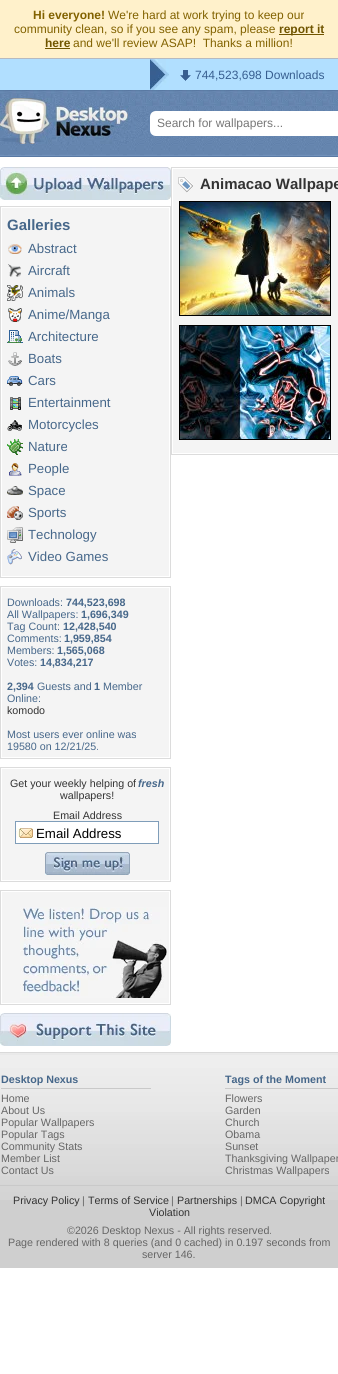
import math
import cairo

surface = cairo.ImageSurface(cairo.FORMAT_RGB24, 338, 1374)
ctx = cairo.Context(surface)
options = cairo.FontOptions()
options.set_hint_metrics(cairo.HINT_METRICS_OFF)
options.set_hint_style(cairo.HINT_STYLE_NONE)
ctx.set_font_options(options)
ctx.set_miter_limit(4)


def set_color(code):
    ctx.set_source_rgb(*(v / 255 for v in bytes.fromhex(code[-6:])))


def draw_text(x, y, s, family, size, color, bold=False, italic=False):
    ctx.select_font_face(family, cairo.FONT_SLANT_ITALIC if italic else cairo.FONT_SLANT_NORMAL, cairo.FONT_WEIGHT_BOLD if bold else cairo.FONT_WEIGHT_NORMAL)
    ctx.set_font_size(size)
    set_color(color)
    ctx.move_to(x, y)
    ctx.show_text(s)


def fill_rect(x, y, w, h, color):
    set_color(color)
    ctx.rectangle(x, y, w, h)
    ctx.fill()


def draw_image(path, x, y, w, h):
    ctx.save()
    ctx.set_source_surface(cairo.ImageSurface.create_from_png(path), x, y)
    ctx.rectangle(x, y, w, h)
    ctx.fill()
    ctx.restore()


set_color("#ffffff")
ctx.paint()
fill_rect(0, 0, 338, 58, "#fff1cb")
draw_text(33, 19, "Hi everyone!", "Liberation Sans", 12, "#826200", bold=True)
draw_text(108, 19, "We're hard at work trying to keep our", "Liberation Sans", 12, "#826200")
draw_text(14, 33, "community clean, so if you see any spam, please", "Liberation Sans", 12, "#826200")
fill_rect(279, 34, 45, 1, "#705500")
draw_text(279, 33, "report it", "Liberation Sans", 12, "#705500", bold=True)
draw_text(45, 47, "here", "Liberation Sans", 12, "#705500", bold=True)
fill_rect(45, 48, 25, 1, "#705500")
draw_text(73, 47, "and we'll review ASAP!  Thanks a million!", "Liberation Sans", 12, "#826200")
fill_rect(0, 59, 338, 31, "#b1dfff")
fill_rect(0, 58, 338, 1, "#b6bac0")
draw_image("assets/img1.png", 150, 59, 19, 31)
draw_image("assets/img2.png", 180, 70, 11, 11)
draw_text(195, 79, "744,523,698 Downloads", "Liberation Sans", 12, "#375e90")
draw_image("assets/img3.png", 0, 90, 338, 67)
draw_image("assets/img4.png", 0, 98, 128, 46)
set_color("#ffffff")
ctx.new_path()
ctx.move_to(156, 111)
ctx.line_to(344, 111)
ctx.line_to(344, 136)
ctx.line_to(156, 136)
ctx.curve_to(152.5, 136, 150, 133.5, 150, 130)
ctx.line_to(150, 117)
ctx.curve_to(150, 113.5, 152.5, 111, 156, 111)
ctx.close_path()
ctx.fill()
draw_text(157, 127, "Search for wallpapers...", "Liberation Sans", 12, "#777777")
ctx.rectangle(171.5, 167.5, 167, 287)
set_color("#dcdcdc")
ctx.set_line_width(1)
ctx.stroke()
fill_rect(173, 169, 165, 284, "#f4f4f4")
draw_image("assets/img5.png", 178, 177, 15, 16)
draw_text(200, 189, "Animacao Wallpape", "Liberation Sans", 15, "#333333", bold=True)
ctx.rectangle(179.5, 201.5, 151, 114)
set_color("#000000")
ctx.stroke()
draw_image("assets/img6.png", 180, 202, 150, 113)
ctx.rectangle(179.5, 325.5, 151, 114)
ctx.stroke()
draw_image("assets/img7.png", 180, 326, 150, 113)
draw_image("assets/img8.png", 0, 167, 171, 33)
ctx.rectangle(0.5, 206.5, 170, 371)
set_color("#dcdcdc")
ctx.stroke()
fill_rect(2, 208, 167, 368, "#f4f4f4")
draw_text(7, 230, "Galleries", "Liberation Sans", 15, "#46678a", bold=True)
draw_image("assets/img9.png", 8, 244, 14, 10)
draw_text(28, 253, "Abstract", "Liberation Sans", 13.25, "#46678a")
draw_image("assets/img10.png", 8, 264, 13, 13)
draw_text(28, 275, "Aircraft", "Liberation Sans", 13.25, "#46678a")
draw_image("assets/img11.png", 7, 285, 16, 16)
draw_text(28, 297, "Animals", "Liberation Sans", 13.25, "#46678a")
draw_image("assets/img12.png", 8, 308, 14, 14)
draw_text(28, 319, "Anime/Manga", "Liberation Sans", 13.25, "#46678a")
draw_image("assets/img13.png", 7, 330, 16, 13)
draw_text(28, 341, "Architecture", "Liberation Sans", 13.25, "#46678a")
draw_image("assets/img14.png", 8, 352, 14, 14)
draw_text(28, 363, "Boats", "Liberation Sans", 13.25, "#46678a")
draw_image("assets/img15.png", 7, 376, 16, 10)
draw_text(28, 385, "Cars", "Liberation Sans", 13.25, "#46678a")
draw_image("assets/img16.png", 10, 397, 11, 13)
draw_text(28, 407, "Entertainment", "Liberation Sans", 13.25, "#46678a")
draw_image("assets/img17.png", 7, 419, 16, 12)
draw_text(28, 429, "Motorcycles", "Liberation Sans", 13.25, "#46678a")
draw_image("assets/img18.png", 7, 439, 16, 16)
draw_text(28, 451, "Nature", "Liberation Sans", 13.25, "#46678a")
draw_image("assets/img19.png", 9, 463, 13, 13)
draw_text(28, 473, "People", "Liberation Sans", 13.25, "#46678a")
draw_image("assets/img20.png", 7, 486, 16, 9)
draw_text(28, 495, "Space", "Liberation Sans", 13.25, "#46678a")
draw_image("assets/img21.png", 7, 506, 16, 14)
draw_text(28, 517, "Sports", "Liberation Sans", 13.25, "#46678a")
draw_image("assets/img22.png", 7, 527, 16, 16)
draw_text(28, 539, "Technology", "Liberation Sans", 13.25, "#46678a")
draw_image("assets/img23.png", 7, 549, 15, 16)
draw_text(28, 561, "Video Games", "Liberation Sans", 13.25, "#46678a")
ctx.rectangle(0.5, 586.5, 170, 172)
set_color("#dcdcdc")
ctx.stroke()
fill_rect(2, 588, 167, 169, "#f4f4f4")
draw_text(7, 606, "Downloads:", "Liberation Sans", 10.7, "#46678a")
draw_text(66, 606, "744,523,698", "Liberation Sans", 10.7, "#46678a", bold=True)
draw_text(7, 618, "All Wallpapers:", "Liberation Sans", 10.7, "#46678a")
draw_text(81, 618, "1,696,349", "Liberation Sans", 10.7, "#46678a", bold=True)
draw_text(7, 630, "Tag Count:", "Liberation Sans", 10.7, "#46678a")
draw_text(63, 630, "12,428,540", "Liberation Sans", 10.7, "#46678a", bold=True)
draw_text(7, 642, "Comments:", "Liberation Sans", 10.7, "#46678a")
draw_text(64, 642, "1,959,854", "Liberation Sans", 10.7, "#46678a", bold=True)
draw_text(7, 654, "Members:", "Liberation Sans", 10.7, "#46678a")
draw_text(57, 654, "1,565,068", "Liberation Sans", 10.7, "#46678a", bold=True)
draw_text(7, 666, "Votes:", "Liberation Sans", 10.7, "#46678a")
draw_text(40, 666, "14,834,217", "Liberation Sans", 10.7, "#46678a", bold=True)
draw_text(7, 690, "2,394", "Liberation Sans", 10.7, "#46678a", bold=True)
draw_text(37, 690, "Guests and", "Liberation Sans", 10.7, "#46678a")
draw_text(94, 690, "1", "Liberation Sans", 10.7, "#46678a", bold=True)
draw_text(103, 690, "Member", "Liberation Sans", 10.7, "#46678a")
draw_text(7, 702, "Online:", "Liberation Sans", 10.7, "#46678a")
draw_text(7, 714, "komodo", "Liberation Sans", 10.7, "#333333")
draw_text(7, 738, "Most users ever online was", "Liberation Sans", 10.7, "#46678a")
draw_text(7, 750, "19580 on 12/21/25.", "Liberation Sans", 10.7, "#46678a")
ctx.rectangle(0.5, 767.5, 170, 114)
set_color("#dcdcdc")
ctx.stroke()
fill_rect(2, 769, 167, 111, "#f4f4f4")
draw_text(10, 787, "Get your weekly helping of", "Liberation Sans", 10.7, "#333333")
draw_text(138, 787, "fresh", "Liberation Sans", 10.7, "#46678a", bold=True, italic=True)
draw_text(60, 799, "wallpapers!", "Liberation Sans", 10.7, "#333333")
draw_text(53, 819, "Email Address", "Liberation Sans", 10.7, "#333333")
fill_rect(16, 822, 142, 21, "#ffffff")
draw_image("assets/img24.png", 16, 828, 17, 10)
ctx.rectangle(15.5, 821.5, 143, 22)
set_color("#7f9db9")
ctx.stroke()
draw_text(36, 838, "Email Address", "Liberation Sans", 13.25, "#000000")
draw_image("assets/img25.png", 45, 852, 85, 23)
ctx.rectangle(0.5, 890.5, 170, 114)
set_color("#dcdcdc")
ctx.stroke()
fill_rect(2, 892, 167, 111, "#f4f4f4")
draw_image("assets/img26.png", 20, 907, 147, 91)
draw_image("assets/img27.png", 0, 1013, 171, 33)
fill_rect(0, 1200, 338, 68, "#cfcfcf")
draw_image("assets/img28.png", 0, 1052, 338, 148)
draw_text(1, 1083, "Desktop Nexus", "Liberation Sans", 10.7, "#46678a", bold=True)
fill_rect(1, 1088, 150, 1, "#c9c9c9")
draw_text(1, 1102, "Home", "Liberation Sans", 10.7, "#666666")
draw_text(1, 1114, "About Us", "Liberation Sans", 10.7, "#666666")
draw_text(1, 1126, "Popular Wallpapers", "Liberation Sans", 10.7, "#666666")
draw_text(1, 1138, "Popular Tags", "Liberation Sans", 10.7, "#666666")
draw_text(1, 1150, "Community Stats", "Liberation Sans", 10.7, "#666666")
draw_text(1, 1162, "Member List", "Liberation Sans", 10.7, "#666666")
draw_text(1, 1174, "Contact Us", "Liberation Sans", 10.7, "#666666")
draw_text(225, 1083, "Tags of the Moment", "Liberation Sans", 10.7, "#46678a", bold=True)
fill_rect(225, 1088, 113, 1, "#c9c9c9")
draw_text(225, 1102, "Flowers", "Liberation Sans", 10.7, "#666666")
draw_text(225, 1114, "Garden", "Liberation Sans", 10.7, "#666666")
draw_text(225, 1126, "Church", "Liberation Sans", 10.7, "#666666")
draw_text(225, 1138, "Obama", "Liberation Sans", 10.7, "#666666")
draw_text(225, 1150, "Sunset", "Liberation Sans", 10.7, "#666666")
draw_text(225, 1162, "Thanksgiving Wallpaper", "Liberation Sans", 10.7, "#666666")
draw_text(225, 1174, "Christmas Wallpapers", "Liberation Sans", 10.7, "#666666")
fill_rect(0, 1185, 338, 1, "#c9c9c9")
draw_text(13, 1204, "Privacy Policy", "Liberation Sans", 10.7, "#333333")
draw_text(82, 1204, "|", "Liberation Sans", 10.7, "#666666")
draw_text(88, 1204, "Terms of Service", "Liberation Sans", 10.7, "#333333")
draw_text(171, 1204, "|", "Liberation Sans", 10.7, "#666666")
draw_text(177, 1204, "Partnerships", "Liberation Sans", 10.7, "#333333")
draw_text(240, 1204, "|", "Liberation Sans", 10.7, "#666666")
draw_text(245, 1204, "DMCA Copyright", "Liberation Sans", 10.7, "#333333")
draw_text(149, 1216, "Violation", "Liberation Sans", 10.7, "#333333")
draw_text(67, 1234, "©2026 Desktop Nexus - All rights reserved.", "Liberation Sans", 10.7, "#666666")
draw_text(8, 1246, "Page rendered with 8 queries (and 0 cached) in 0.197 seconds from", "Liberation Sans", 10.7, "#666666")
draw_text(142, 1258, "server 146.", "Liberation Sans", 10.7, "#666666")
surface.write_to_png("output.png")
